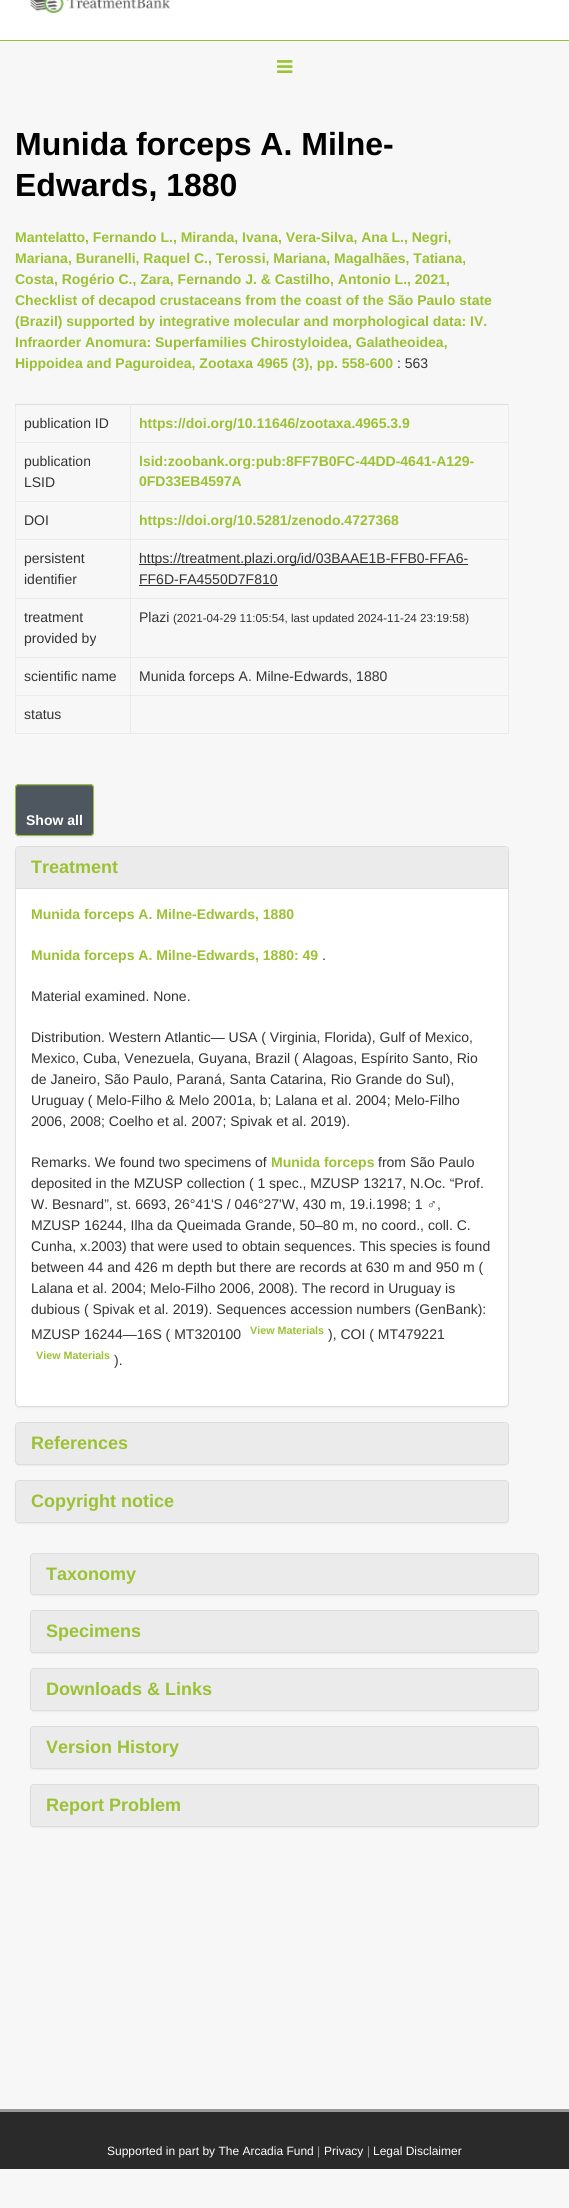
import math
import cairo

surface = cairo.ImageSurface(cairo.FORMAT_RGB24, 569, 2208)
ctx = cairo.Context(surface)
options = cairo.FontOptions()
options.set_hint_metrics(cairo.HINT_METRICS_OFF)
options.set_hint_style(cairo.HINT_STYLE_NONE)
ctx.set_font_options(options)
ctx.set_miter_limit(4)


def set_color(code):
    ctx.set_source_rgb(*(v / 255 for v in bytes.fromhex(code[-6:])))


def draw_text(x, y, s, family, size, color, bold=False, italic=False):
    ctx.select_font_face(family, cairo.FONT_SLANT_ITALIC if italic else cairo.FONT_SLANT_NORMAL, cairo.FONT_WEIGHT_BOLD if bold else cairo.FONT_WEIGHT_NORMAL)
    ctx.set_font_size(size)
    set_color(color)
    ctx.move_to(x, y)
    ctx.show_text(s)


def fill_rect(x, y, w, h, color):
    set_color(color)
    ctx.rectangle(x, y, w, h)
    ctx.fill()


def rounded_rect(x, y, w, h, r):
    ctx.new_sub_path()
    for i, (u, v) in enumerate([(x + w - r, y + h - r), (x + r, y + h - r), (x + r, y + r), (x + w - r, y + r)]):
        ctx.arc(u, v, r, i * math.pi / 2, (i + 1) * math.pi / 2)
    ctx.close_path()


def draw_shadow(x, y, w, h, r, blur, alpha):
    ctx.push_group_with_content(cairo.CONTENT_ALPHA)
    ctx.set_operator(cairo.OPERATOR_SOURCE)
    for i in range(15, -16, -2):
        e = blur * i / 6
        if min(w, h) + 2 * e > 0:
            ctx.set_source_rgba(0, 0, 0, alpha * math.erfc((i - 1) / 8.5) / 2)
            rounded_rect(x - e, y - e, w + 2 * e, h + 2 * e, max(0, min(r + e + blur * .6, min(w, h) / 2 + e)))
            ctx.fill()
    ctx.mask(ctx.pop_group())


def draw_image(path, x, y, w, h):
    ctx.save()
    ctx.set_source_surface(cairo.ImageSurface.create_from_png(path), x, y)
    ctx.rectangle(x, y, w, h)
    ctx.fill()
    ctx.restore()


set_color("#f7f7f7")
ctx.paint()
fill_rect(0, 0, 569, 40, "#ffffff")
fill_rect(0, 40, 569, 1, "#9bc134")
draw_image("assets/img1.png", 30, 0, 140, 13)
draw_image("assets/img2.png", 277, 60, 16, 13)
draw_text(15, 155, "Munida forceps A. Milne-", "Liberation Sans", 32, "#000000", bold=True)
draw_text(15, 196, "Edwards, 1880", "Liberation Sans", 32, "#000000", bold=True)
draw_text(15, 242, "Mantelatto, Fernando L., Miranda, Ivana, Vera-Silva, Ana L., Negri,", "Liberation Sans", 14, "#9bc134", bold=True)
draw_text(15, 263, "Mariana, Buranelli, Raquel C., Terossi, Mariana, Magalhães, Tatiana,", "Liberation Sans", 14, "#9bc134", bold=True)
draw_text(15, 284, "Costa, Rogério C., Zara, Fernando J. & Castilho, Antonio L., 2021,", "Liberation Sans", 14, "#9bc134", bold=True)
draw_text(15, 305, "Checklist of decapod crustaceans from the coast of the São Paulo state", "Liberation Sans", 14, "#9bc134", bold=True)
draw_text(15, 326, "(Brazil) supported by integrative molecular and morphological data: IV.", "Liberation Sans", 14, "#9bc134", bold=True)
draw_text(15, 347, "Infraorder Anomura: Superfamilies Chirostyloidea, Galatheoidea,", "Liberation Sans", 14, "#9bc134", bold=True)
draw_text(15, 368, "Hippoidea and Paguroidea, Zootaxa 4965 (3), pp. 558-600", "Liberation Sans", 14, "#9bc134", bold=True)
draw_text(397, 368, ": 563", "Liberation Sans", 14, "#333333")
fill_rect(15, 404, 1, 330, "#ebebeb")
fill_rect(15, 404, 494, 1, "#dddddd")
fill_rect(508, 442, 1, 292, "#ebebeb")
fill_rect(508, 404, 1, 39, "#ebebeb")
fill_rect(130, 733, 379, 1, "#ebebeb")
fill_rect(130, 695, 1, 39, "#ebebeb")
fill_rect(130, 695, 379, 1, "#ebebeb")
fill_rect(130, 657, 1, 39, "#ebebeb")
fill_rect(130, 657, 379, 1, "#ebebeb")
fill_rect(130, 598, 1, 60, "#ebebeb")
fill_rect(130, 598, 379, 1, "#ebebeb")
fill_rect(130, 539, 1, 60, "#ebebeb")
fill_rect(130, 539, 379, 1, "#ebebeb")
fill_rect(130, 501, 1, 39, "#ebebeb")
fill_rect(130, 501, 379, 1, "#ebebeb")
fill_rect(130, 442, 1, 60, "#ebebeb")
fill_rect(130, 442, 379, 1, "#ebebeb")
fill_rect(130, 404, 1, 39, "#ebebeb")
fill_rect(15, 442, 116, 1, "#ebebeb")
draw_text(24, 428, "publication ID", "Liberation Sans", 14, "#333333")
draw_text(139, 428, "https://doi.org/10.11646/zootaxa.4965.3.9", "Liberation Sans", 14, "#9bc134", bold=True)
fill_rect(15, 501, 116, 1, "#ebebeb")
draw_text(24, 466, "publication", "Liberation Sans", 14, "#333333")
draw_text(24, 487, "LSID", "Liberation Sans", 14, "#333333")
draw_text(139, 466, "lsid:zoobank.org:pub:8FF7B0FC-44DD-4641-A129-", "Liberation Sans", 14, "#9bc134", bold=True)
draw_text(139, 486, "0FD33EB4597A", "Liberation Sans", 14, "#9bc134", bold=True)
fill_rect(15, 539, 116, 1, "#ebebeb")
draw_text(24, 525, "DOI", "Liberation Sans", 14, "#333333")
draw_text(139, 525, "https://doi.org/10.5281/zenodo.4727368", "Liberation Sans", 14, "#9bc134", bold=True)
fill_rect(15, 598, 116, 1, "#ebebeb")
draw_text(24, 563, "persistent", "Liberation Sans", 14, "#333333")
draw_text(24, 584, "identifier", "Liberation Sans", 14, "#333333")
fill_rect(139, 564, 329, 1, "#333333")
draw_text(139, 563, "https://treatment.plazi.org/id/03BAAE1B-FFB0-FFA6-", "Liberation Sans", 14, "#333333")
draw_text(139, 584, "FF6D-FA4550D7F810", "Liberation Sans", 14, "#333333")
fill_rect(139, 585, 139, 1, "#333333")
fill_rect(15, 657, 116, 1, "#ebebeb")
draw_text(24, 622, "treatment", "Liberation Sans", 14, "#333333")
draw_text(24, 643, "provided by", "Liberation Sans", 14, "#333333")
draw_text(139, 622, "Plazi", "Liberation Sans", 14, "#333333")
draw_text(173, 622, "(2021-04-29 11:05:54, last updated 2024-11-24 23:19:58)", "Liberation Sans", 11.6, "#333333")
fill_rect(15, 695, 116, 1, "#ebebeb")
draw_text(24, 681, "scientific name", "Liberation Sans", 14, "#333333")
draw_text(139, 681, "Munida forceps A. Milne-Edwards, 1880", "Liberation Sans", 14, "#333333")
fill_rect(15, 733, 116, 1, "#ebebeb")
draw_text(24, 719, "status", "Liberation Sans", 14, "#333333")
set_color("#000000")
draw_shadow(15, 785, 79, 52, 4, 0.5, 0.07)
set_color("#4e565f")
rounded_rect(15, 784, 79, 52, 4)
ctx.fill()
set_color("#696f77")
ctx.new_path()
ctx.move_to(19, 786)
ctx.line_to(90, 786)
ctx.curve_to(92, 786, 93, 787, 93, 789)
ctx.curve_to(93, 782, 82, 785, 78, 785)
ctx.line_to(31, 785)
ctx.curve_to(27, 785, 16, 782, 16, 789)
ctx.curve_to(16, 787, 17, 786, 19, 786)
ctx.close_path()
ctx.fill()
rounded_rect(15.5, 784.5, 78, 51, 3.5)
set_color("#9bc134")
ctx.set_line_width(1)
ctx.stroke()
draw_text(26, 825, "Show all", "Liberation Sans", 14, "#ffffff", bold=True)
set_color("#000000")
draw_shadow(15, 847, 494, 561, 4, 0.5, 0.05)
set_color("#ffffff")
rounded_rect(15.5, 846.5, 493, 560, 3.5)
ctx.fill_preserve()
set_color("#dddddd")
ctx.stroke()
set_color("#ebebeb")
ctx.new_path()
ctx.move_to(19, 847)
ctx.line_to(505, 847)
ctx.curve_to(506.5, 847, 508, 848.5, 508, 850)
ctx.line_to(508, 888)
ctx.line_to(16, 888)
ctx.line_to(16, 850)
ctx.curve_to(16, 848.5, 17.5, 847, 19, 847)
ctx.close_path()
ctx.fill()
draw_text(31, 873, "Treatment", "Liberation Sans", 18, "#9bc134", bold=True)
fill_rect(16, 888, 492, 1, "#dddddd")
draw_text(31, 919, "Munida forceps A. Milne-Edwards, 1880", "Liberation Sans", 14, "#9bc134", bold=True)
draw_text(31, 960, "Munida forceps A. Milne-Edwards, 1880: 49", "Liberation Sans", 14, "#9bc134", bold=True)
draw_text(322, 960, ".", "Liberation Sans", 14, "#333333")
draw_text(31, 1001, "Material examined. None.", "Liberation Sans", 14, "#333333")
draw_text(31, 1042, "Distribution. Western Atlantic— USA ( Virginia, Florida), Gulf of Mexico,", "Liberation Sans", 14, "#333333")
draw_text(31, 1063, "Mexico, Cuba, Venezuela, Guyana, Brazil ( Alagoas, Espírito Santo, Rio", "Liberation Sans", 14, "#333333")
draw_text(31, 1084, "de Janeiro, São Paulo, Paraná, Santa Catarina, Rio Grande do Sul),", "Liberation Sans", 14, "#333333")
draw_text(31, 1105, "Uruguay ( Melo-Filho & Melo 2001a, b; Lalana et al. 2004; Melo-Filho", "Liberation Sans", 14, "#333333")
draw_text(31, 1126, "2006, 2008; Coelho et al. 2007; Spivak et al. 2019).", "Liberation Sans", 14, "#333333")
draw_text(31, 1167, "Remarks. We found two specimens of", "Liberation Sans", 14, "#333333")
draw_text(271, 1167, "Munida forceps", "Liberation Sans", 14, "#9bc134", bold=True)
draw_text(378, 1167, "from São Paulo", "Liberation Sans", 14, "#333333")
draw_text(31, 1188, "deposited in the MZUSP collection ( 1 spec., MZUSP 13217, N.Oc. “Prof.", "Liberation Sans", 14, "#333333")
draw_text(31, 1209, "W. Besnard”, st. 6693, 26°41ʹS / 046°27ʹW, 430 m, 19.i.1998; 1 ♂,", "Liberation Sans", 14, "#333333")
draw_text(31, 1230, "MZUSP 16244, Ilha da Queimada Grande, 50–80 m, no coord., coll. C.", "Liberation Sans", 14, "#333333")
draw_text(31, 1251, "Cunha, x.2003) that were used to obtain sequences. This species is found", "Liberation Sans", 14, "#333333")
draw_text(31, 1272, "between 44 and 426 m depth but there are records at 630 m and 950 m (", "Liberation Sans", 14, "#333333")
draw_text(31, 1293, "Lalana et al. 2004; Melo-Filho 2006, 2008). The record in Uruguay is", "Liberation Sans", 14, "#333333")
draw_text(31, 1314, "dubious ( Spivak et al. 2019). Sequences accession numbers (GenBank):", "Liberation Sans", 14, "#333333")
draw_text(31, 1339, "MZUSP 16244—16S ( MT320100", "Liberation Sans", 14, "#333333")
draw_text(250, 1334, "View Materials", "Liberation Sans", 10.75, "#9bc134", bold=True)
draw_text(328, 1339, "), COI ( MT479221", "Liberation Sans", 14, "#333333")
draw_text(36, 1359, "View Materials", "Liberation Sans", 10.75, "#9bc134", bold=True)
draw_text(114, 1365, ").", "Liberation Sans", 14, "#333333")
set_color("#000000")
draw_shadow(15, 1423, 494, 43, 4, 0.5, 0.05)
rounded_rect(15.5, 1422.5, 493, 42, 3.5)
set_color("#dddddd")
ctx.stroke()
set_color("#ebebeb")
rounded_rect(16, 1423, 492, 41, 3)
ctx.fill()
draw_text(31, 1449, "References", "Liberation Sans", 18, "#9bc134", bold=True)
set_color("#000000")
draw_shadow(15, 1481, 494, 43, 4, 0.5, 0.05)
rounded_rect(15.5, 1480.5, 493, 42, 3.5)
set_color("#dddddd")
ctx.stroke()
set_color("#ebebeb")
rounded_rect(16, 1481, 492, 41, 3)
ctx.fill()
draw_text(31, 1507, "Copyright notice", "Liberation Sans", 18, "#9bc134", bold=True)
set_color("#000000")
draw_shadow(30, 1554, 509, 42, 4, 0.5, 0.05)
rounded_rect(30.5, 1553.5, 508, 41, 3.5)
set_color("#dddddd")
ctx.stroke()
set_color("#ebebeb")
rounded_rect(31, 1554, 507, 40, 3)
ctx.fill()
draw_text(46, 1580, "Taxonomy", "Liberation Sans", 18, "#9bc134", bold=True)
set_color("#000000")
draw_shadow(30, 1611, 509, 43, 4, 0.5, 0.05)
rounded_rect(30.5, 1610.5, 508, 42, 3.5)
set_color("#dddddd")
ctx.stroke()
set_color("#ebebeb")
rounded_rect(31, 1611, 507, 41, 3)
ctx.fill()
draw_text(46, 1637, "Specimens", "Liberation Sans", 18, "#9bc134", bold=True)
set_color("#000000")
draw_shadow(30, 1669, 509, 43, 4, 0.5, 0.05)
rounded_rect(30.5, 1668.5, 508, 42, 3.5)
set_color("#dddddd")
ctx.stroke()
set_color("#ebebeb")
rounded_rect(31, 1669, 507, 41, 3)
ctx.fill()
draw_text(46, 1695, "Downloads & Links", "Liberation Sans", 18, "#9bc134", bold=True)
set_color("#000000")
draw_shadow(30, 1727, 509, 43, 4, 0.5, 0.05)
rounded_rect(30.5, 1726.5, 508, 42, 3.5)
set_color("#dddddd")
ctx.stroke()
set_color("#ebebeb")
rounded_rect(31, 1727, 507, 41, 3)
ctx.fill()
draw_text(46, 1753, "Version History", "Liberation Sans", 18, "#9bc134", bold=True)
set_color("#000000")
draw_shadow(30, 1785, 509, 43, 4, 0.5, 0.05)
rounded_rect(30.5, 1784.5, 508, 42, 3.5)
set_color("#dddddd")
ctx.stroke()
set_color("#ebebeb")
rounded_rect(31, 1785, 507, 41, 3)
ctx.fill()
draw_text(46, 1811, "Report Problem", "Liberation Sans", 18, "#9bc134", bold=True)
fill_rect(0, 2112, 569, 57, "#2a2a2a")
fill_rect(0, 2109, 569, 3, "#999999")
draw_text(107, 2155, "Supported in part by The Arcadia Fund", "Liberation Sans", 12, "#ffffff")
draw_text(317, 2155, "|", "Liberation Sans", 12, "#999999")
draw_text(324, 2155, "Privacy", "Liberation Sans", 12, "#ffffff")
draw_text(367, 2155, "|", "Liberation Sans", 12, "#999999")
draw_text(373, 2155, "Legal Disclaimer", "Liberation Sans", 12, "#ffffff")
surface.write_to_png("output.png")
